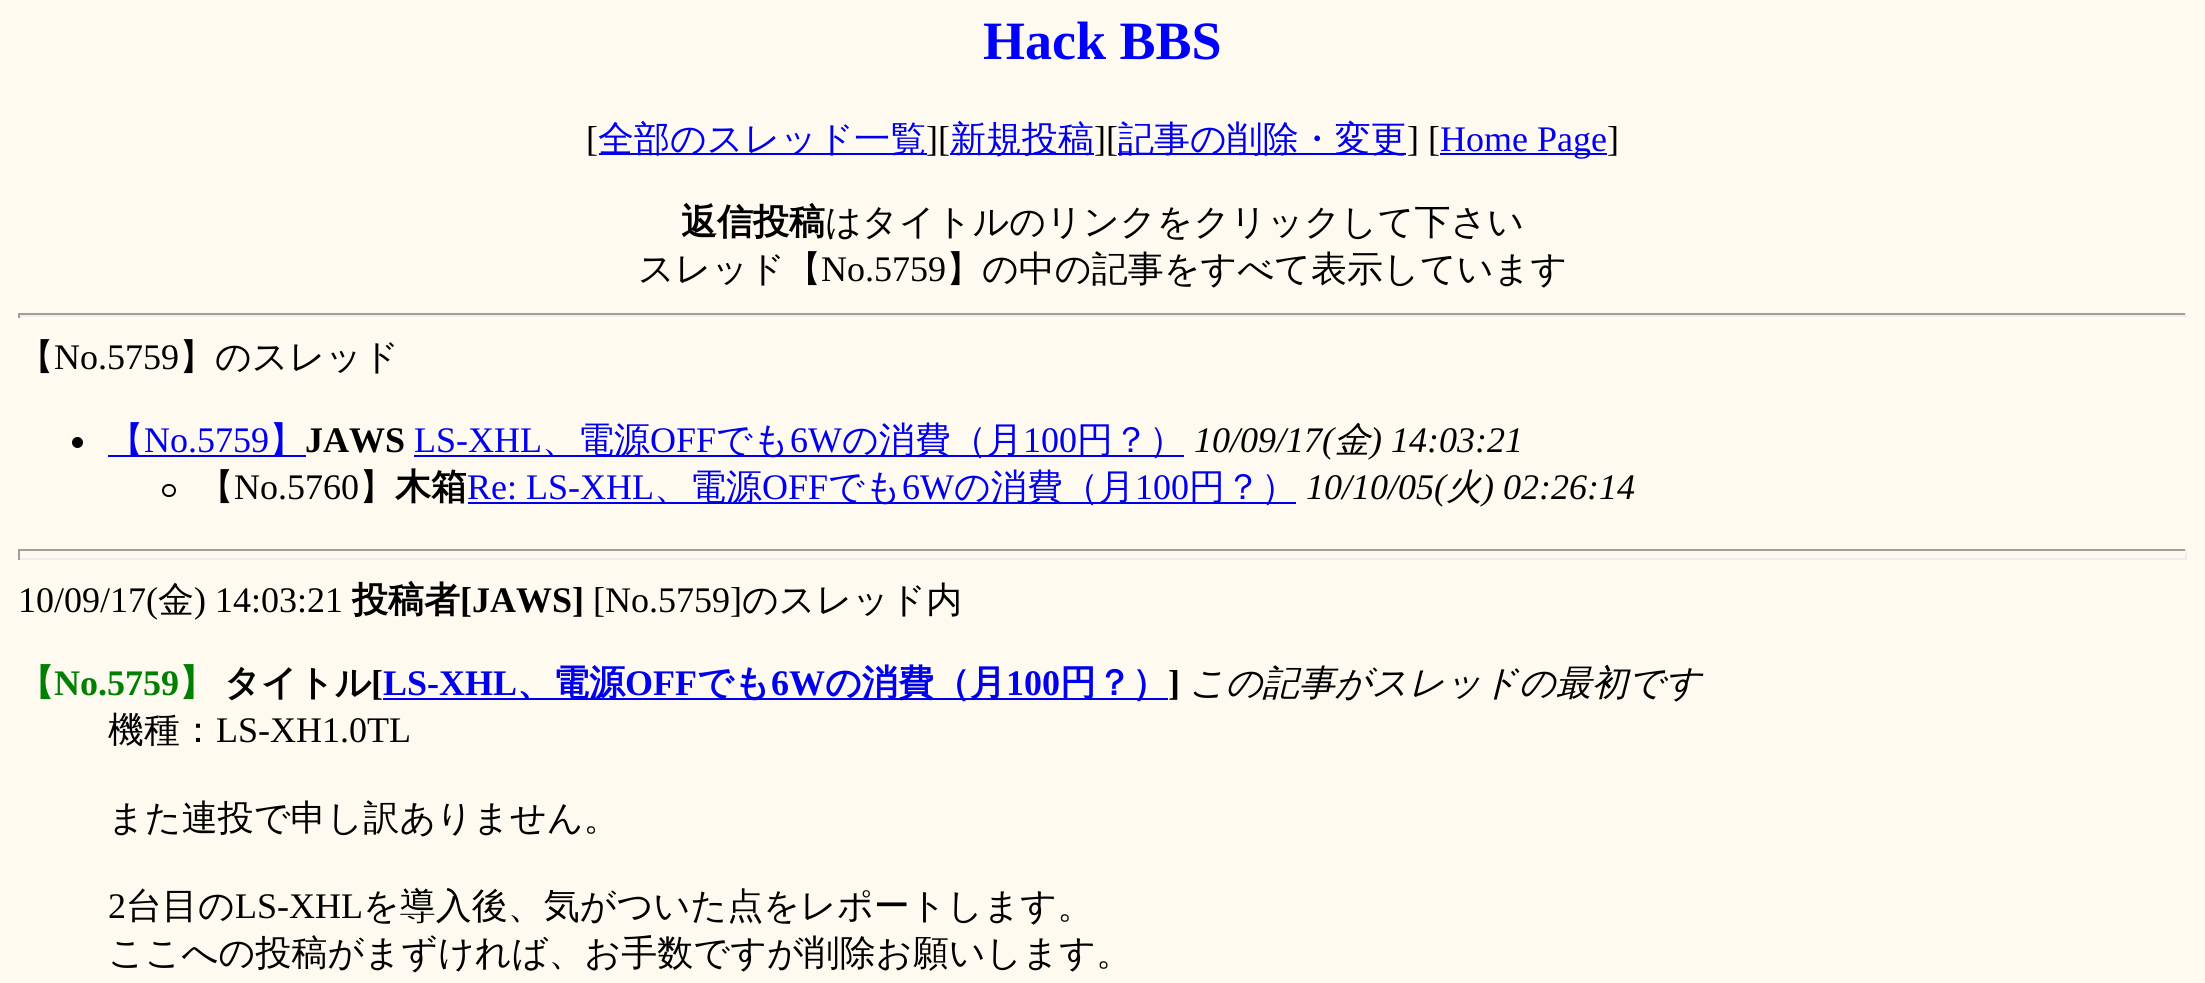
import math
import cairo

surface = cairo.ImageSurface(cairo.FORMAT_RGB24, 2205, 983)
ctx = cairo.Context(surface)
options = cairo.FontOptions()
options.set_hint_metrics(cairo.HINT_METRICS_OFF)
options.set_hint_style(cairo.HINT_STYLE_NONE)
ctx.set_font_options(options)
ctx.set_miter_limit(4)


def set_color(code):
    ctx.set_source_rgb(*(v / 255 for v in bytes.fromhex(code[-6:])))


def draw_text(x, y, s, family, size, color, bold=False, italic=False):
    ctx.select_font_face(family, cairo.FONT_SLANT_ITALIC if italic else cairo.FONT_SLANT_NORMAL, cairo.FONT_WEIGHT_BOLD if bold else cairo.FONT_WEIGHT_NORMAL)
    ctx.set_font_size(size)
    set_color(color)
    ctx.move_to(x, y)
    ctx.show_text(s)


def fill_rect(x, y, w, h, color):
    set_color(color)
    ctx.rectangle(x, y, w, h)
    ctx.fill()


def rounded_rect(x, y, w, h, r):
    ctx.new_sub_path()
    for i, (u, v) in enumerate([(x + w - r, y + h - r), (x + r, y + h - r), (x + r, y + r), (x + w - r, y + r)]):
        ctx.arc(u, v, r, i * math.pi / 2, (i + 1) * math.pi / 2)
    ctx.close_path()


set_color("#fffaf0")
ctx.paint()
draw_text(983, 59, "Hack BBS", "Liberation Serif", 54, "#0000ff", bold=True)
draw_text(586, 151, "[", "Liberation Serif", 36, "#000000")
fill_rect(599, 153, 328, 2, "#0000ee")
draw_text(598, 151, "全部のスレッド一覧", "WenQuanYi Zen Hei Medium", 36, "#0000ee")
draw_text(926, 151, "][", "Liberation Serif", 36, "#000000")
fill_rect(950, 153, 144, 2, "#0000ee")
draw_text(950, 151, "新規投稿", "WenQuanYi Zen Hei Medium", 36, "#0000ee")
draw_text(1094, 151, "][", "Liberation Serif", 36, "#000000")
fill_rect(1118, 153, 288, 2, "#0000ee")
draw_text(1118, 151, "記事の削除・変更", "WenQuanYi Zen Hei Medium", 36, "#0000ee")
draw_text(1407, 151, "] [", "Liberation Serif", 36, "#000000")
fill_rect(1440, 153, 167, 2, "#0000ee")
draw_text(1440, 151, "Home Page", "Liberation Serif", 36, "#0000ee")
draw_text(1607, 151, "]", "Liberation Serif", 36, "#000000")
draw_text(681, 234, "返信投稿", "WenQuanYi Zen Hei", 36, "#000000", bold=True)
draw_text(825, 234, "はタイトルのリンクをクリックして下さい", "WenQuanYi Zen Hei Medium", 36, "#000000")
draw_text(638, 281, "スレッド【", "WenQuanYi Zen Hei Medium", 36, "#000000")
draw_text(821, 281, "No.5759", "Liberation Serif", 36, "#000000")
draw_text(946, 281, "】の中の記事をすべて表示しています", "WenQuanYi Zen Hei Medium", 36, "#000000")
fill_rect(18, 313, 2169, 2, "#9f9f9f")
fill_rect(2185, 313, 2, 5, "#eeeeee")
fill_rect(18, 315, 2169, 2, "#eeeeee")
fill_rect(18, 313, 2, 5, "#9f9f9f")
draw_text(18, 369, "【", "WenQuanYi Zen Hei Medium", 36, "#000000")
draw_text(54, 369, "No.5759", "Liberation Serif", 36, "#000000")
draw_text(179, 369, "】のスレッド", "WenQuanYi Zen Hei Medium", 36, "#000000")
ctx.new_path()
ctx.arc(77.5, 442.5, 5.5, 0, 2 * math.pi)
ctx.fill()
fill_rect(108, 455, 198, 2, "#0000ee")
draw_text(108, 452, "【", "WenQuanYi Zen Hei Medium", 36, "#0000ee")
draw_text(144, 452, "No.5759", "Liberation Serif", 36, "#0000ee")
draw_text(269, 452, "】", "WenQuanYi Zen Hei Medium", 36, "#0000ee")
draw_text(305, 452, "JAWS", "Liberation Serif", 36, "#000000", bold=True)
draw_text(414, 452, "LS-XHL", "Liberation Serif", 36, "#0000ee")
fill_rect(414, 455, 770, 2, "#0000ee")
draw_text(542, 452, "、電源", "WenQuanYi Zen Hei Medium", 36, "#0000ee")
draw_text(650, 452, "OFF", "Liberation Serif", 36, "#0000ee")
draw_text(716, 452, "でも", "WenQuanYi Zen Hei Medium", 36, "#0000ee")
draw_text(790, 452, "6W", "Liberation Serif", 36, "#0000ee")
draw_text(842, 452, "の消費（月", "WenQuanYi Zen Hei Medium", 36, "#0000ee")
draw_text(1023, 452, "100", "Liberation Serif", 36, "#0000ee")
draw_text(1077, 452, "円？）", "WenQuanYi Zen Hei Medium", 36, "#0000ee")
draw_text(1194, 452, "10/09/17(", "Liberation Serif", 36, "#000000", italic=True)
draw_text(1334, 452, "金", "WenQuanYi Zen Hei Medium", 36, "#000000", italic=True)
draw_text(1370, 452, ") 14:03:21", "Liberation Serif", 36, "#000000", italic=True)
rounded_rect(163, 485, 12, 11, 5.5)
ctx.stroke()
draw_text(198, 499, "【", "WenQuanYi Zen Hei Medium", 36, "#000000")
draw_text(234, 499, "No.5760", "Liberation Serif", 36, "#000000")
draw_text(359, 499, "】", "WenQuanYi Zen Hei Medium", 36, "#000000")
draw_text(395, 499, "木箱", "WenQuanYi Zen Hei", 36, "#000000", bold=True)
draw_text(467, 499, "Re: LS-XHL", "Liberation Serif", 36, "#0000ee")
fill_rect(468, 502, 828, 2, "#0000ee")
draw_text(654, 499, "、電源", "WenQuanYi Zen Hei Medium", 36, "#0000ee")
draw_text(762, 499, "OFF", "Liberation Serif", 36, "#0000ee")
draw_text(828, 499, "でも", "WenQuanYi Zen Hei Medium", 36, "#0000ee")
draw_text(902, 499, "6W", "Liberation Serif", 36, "#0000ee")
draw_text(954, 499, "の消費（月", "WenQuanYi Zen Hei Medium", 36, "#0000ee")
draw_text(1135, 499, "100", "Liberation Serif", 36, "#0000ee")
draw_text(1189, 499, "円？）", "WenQuanYi Zen Hei Medium", 36, "#0000ee")
draw_text(1306, 499, "10/10/05(", "Liberation Serif", 36, "#000000", italic=True)
draw_text(1446, 499, "火", "WenQuanYi Zen Hei Medium", 36, "#000000", italic=True)
draw_text(1482, 499, ") 02:26:14", "Liberation Serif", 36, "#000000", italic=True)
fill_rect(18, 549, 2169, 2, "#9f9f9f")
fill_rect(2185, 549, 2, 11, "#eeeeee")
fill_rect(18, 558, 2169, 2, "#eeeeee")
fill_rect(18, 549, 2, 11, "#9f9f9f")
draw_text(18, 612, "10/09/17(", "Liberation Serif", 36, "#000000")
draw_text(158, 612, "金", "WenQuanYi Zen Hei Medium", 36, "#000000")
draw_text(194, 612, ") 14:03:21", "Liberation Serif", 36, "#000000")
draw_text(352, 612, "投稿者", "WenQuanYi Zen Hei", 36, "#000000", bold=True)
draw_text(460, 612, "[JAWS]", "Liberation Serif", 36, "#000000", bold=True)
draw_text(593, 612, "[No.5759]", "Liberation Serif", 36, "#000000")
draw_text(742, 612, "のスレッド内", "WenQuanYi Zen Hei Medium", 36, "#000000")
draw_text(18, 695, "【", "WenQuanYi Zen Hei", 36, "#008000", bold=True)
draw_text(54, 695, "No.5759", "Liberation Serif", 36, "#008000", bold=True)
draw_text(179, 695, "】", "WenQuanYi Zen Hei", 36, "#008000", bold=True)
draw_text(224, 695, "タイトル", "WenQuanYi Zen Hei", 36, "#000000", bold=True)
draw_text(371, 695, "[", "Liberation Serif", 36, "#000000", bold=True)
fill_rect(383, 698, 785, 2, "#0000ee")
draw_text(383, 695, "LS-XHL", "Liberation Serif", 36, "#0000ee", bold=True)
draw_text(517, 695, "、電源", "WenQuanYi Zen Hei", 36, "#0000ee", bold=True)
draw_text(625, 695, "OFF", "Liberation Serif", 36, "#0000ee", bold=True)
draw_text(697, 695, "でも", "WenQuanYi Zen Hei", 36, "#0000ee", bold=True)
draw_text(771, 695, "6W", "Liberation Serif", 36, "#0000ee", bold=True)
draw_text(825, 695, "の消費（月", "WenQuanYi Zen Hei", 36, "#0000ee", bold=True)
draw_text(1006, 695, "100", "Liberation Serif", 36, "#0000ee", bold=True)
draw_text(1060, 695, "円？）", "WenQuanYi Zen Hei", 36, "#0000ee", bold=True)
draw_text(1168, 695, "]", "Liberation Serif", 36, "#000000", bold=True)
draw_text(1189, 695, "この記事がスレッドの最初です", "WenQuanYi Zen Hei Medium", 36, "#000000", italic=True)
draw_text(108, 742, "機種：", "WenQuanYi Zen Hei Medium", 36, "#000000")
draw_text(216, 742, "LS-XH1.0TL", "Liberation Serif", 36, "#000000")
draw_text(108, 830, "また連投で申し訳ありません。", "WenQuanYi Zen Hei Medium", 36, "#000000")
draw_text(108, 918, "2", "Liberation Serif", 36, "#000000")
draw_text(126, 918, "台目の", "WenQuanYi Zen Hei Medium", 36, "#000000")
draw_text(235, 918, "LS-XHL", "Liberation Serif", 36, "#000000")
draw_text(363, 918, "を導入後、気がついた点をレポートします。", "WenQuanYi Zen Hei Medium", 36, "#000000")
draw_text(108, 965, "ここへの投稿がまずければ、お手数ですが削除お願いします。", "WenQuanYi Zen Hei Medium", 36, "#000000")
surface.write_to_png("output.png")
